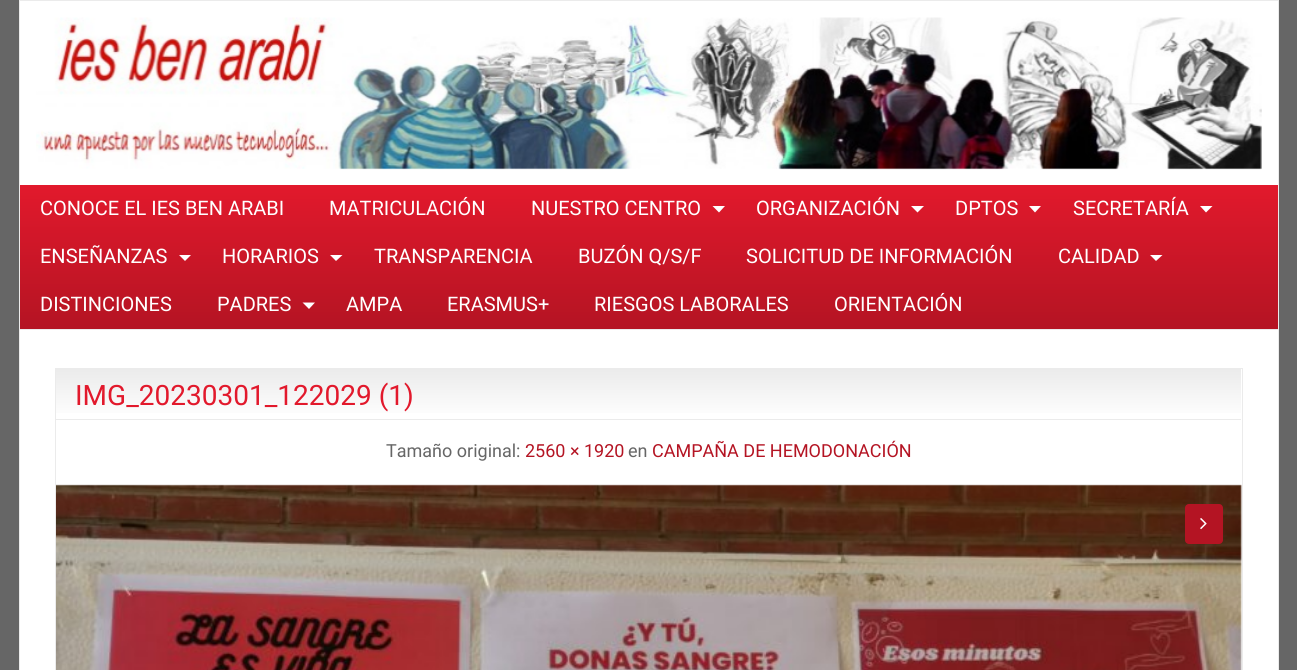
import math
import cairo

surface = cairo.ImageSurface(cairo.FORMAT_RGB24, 1297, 670)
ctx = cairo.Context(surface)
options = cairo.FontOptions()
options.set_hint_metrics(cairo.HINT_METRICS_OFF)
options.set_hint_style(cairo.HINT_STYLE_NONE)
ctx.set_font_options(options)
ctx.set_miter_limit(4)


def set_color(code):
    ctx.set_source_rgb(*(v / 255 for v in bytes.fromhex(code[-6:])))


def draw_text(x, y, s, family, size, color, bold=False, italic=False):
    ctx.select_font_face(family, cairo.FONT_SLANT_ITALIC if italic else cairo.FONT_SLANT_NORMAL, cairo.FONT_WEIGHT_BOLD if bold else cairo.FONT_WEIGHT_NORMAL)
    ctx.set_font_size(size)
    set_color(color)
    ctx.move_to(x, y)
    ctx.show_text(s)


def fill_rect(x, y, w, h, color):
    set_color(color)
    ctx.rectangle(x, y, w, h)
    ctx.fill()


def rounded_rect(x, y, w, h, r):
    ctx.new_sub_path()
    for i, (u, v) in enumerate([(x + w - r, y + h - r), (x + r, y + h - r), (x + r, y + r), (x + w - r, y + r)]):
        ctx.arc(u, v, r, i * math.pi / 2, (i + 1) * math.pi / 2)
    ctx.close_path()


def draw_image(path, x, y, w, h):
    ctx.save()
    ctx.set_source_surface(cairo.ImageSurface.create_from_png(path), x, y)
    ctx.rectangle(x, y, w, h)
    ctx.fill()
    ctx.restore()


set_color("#666666")
ctx.paint()
set_color("#ffffff")
ctx.rectangle(19.5, 0.5, 1259, 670)
ctx.fill_preserve()
set_color("#ebebeb")
ctx.set_line_width(1)
ctx.stroke()
draw_image("assets/img1.png", 36, 17, 1226, 153)
gradient = cairo.LinearGradient(20, 185, 20, 329)
gradient.add_color_stop_rgba(0, 0.886, 0.098, 0.173, 1)
gradient.add_color_stop_rgba(1, 0.706, 0.078, 0.137, 1)
ctx.set_source(gradient)
ctx.rectangle(20, 185, 1258, 144)
ctx.fill()
draw_text(40, 215, "CONOCE EL IES BEN ARABI", "Roboto", 20, "#ffffff")
draw_text(329, 215, "MATRICULACIÓN", "Roboto", 20, "#ffffff")
draw_text(531, 215, "NUESTRO CENTRO", "Roboto", 20, "#ffffff")
ctx.new_path()
ctx.move_to(712.5, 206)
ctx.line_to(725, 206)
ctx.line_to(719, 212.5)
ctx.close_path()
ctx.fill()
draw_text(756, 215, "ORGANIZACIÓN", "Roboto", 20, "#ffffff")
ctx.new_path()
ctx.move_to(911, 206)
ctx.line_to(924, 206)
ctx.line_to(917.5, 212.5)
ctx.close_path()
ctx.fill()
draw_text(955, 215, "DPTOS", "Roboto", 20, "#ffffff")
ctx.new_path()
ctx.move_to(1029, 206)
ctx.line_to(1041, 206)
ctx.line_to(1035, 212.5)
ctx.close_path()
ctx.fill()
draw_text(1073, 215, "SECRETARÍA", "Roboto", 20, "#ffffff")
ctx.new_path()
ctx.move_to(1200, 206)
ctx.line_to(1212.5, 206)
ctx.line_to(1206, 212.5)
ctx.close_path()
ctx.fill()
draw_text(40, 263, "ENSEÑANZAS", "Roboto", 20, "#ffffff")
ctx.new_path()
ctx.move_to(179, 255)
ctx.line_to(191, 255)
ctx.line_to(185, 261)
ctx.close_path()
ctx.fill()
draw_text(222, 263, "HORARIOS", "Roboto", 20, "#ffffff")
ctx.new_path()
ctx.move_to(330, 255)
ctx.line_to(342.5, 255)
ctx.line_to(336, 261)
ctx.close_path()
ctx.fill()
draw_text(374, 263, "TRANSPARENCIA", "Roboto", 20, "#ffffff")
draw_text(578, 263, "BUZÓN Q/S/F", "Roboto", 20, "#ffffff")
draw_text(746, 263, "SOLICITUD DE INFORMACIÓN", "Roboto", 20, "#ffffff")
draw_text(1058, 263, "CALIDAD", "Roboto", 20, "#ffffff")
ctx.new_path()
ctx.move_to(1150, 255)
ctx.line_to(1162.5, 255)
ctx.line_to(1156, 261)
ctx.close_path()
ctx.fill()
draw_text(40, 311, "DISTINCIONES", "Roboto", 20, "#ffffff")
draw_text(217, 311, "PADRES", "Roboto", 20, "#ffffff")
ctx.new_path()
ctx.move_to(302.5, 302.5)
ctx.line_to(315, 302.5)
ctx.line_to(309, 309)
ctx.close_path()
ctx.fill()
draw_text(346, 311, "AMPA", "Roboto", 20, "#ffffff")
draw_text(447, 311, "ERASMUS+", "Roboto", 20, "#ffffff")
draw_text(594, 311, "RIESGOS LABORALES", "Roboto", 20, "#ffffff")
draw_text(834, 311, "ORIENTACIÓN", "Roboto", 20, "#ffffff")
fill_rect(20, 329, 1258, 1, "#ebebeb")
ctx.rectangle(55.5, 368.5, 1187, 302)
ctx.stroke()
gradient = cairo.LinearGradient(56, 369, 56, 419)
gradient.add_color_stop_rgba(0, 0.922, 0.922, 0.922, 1)
gradient.add_color_stop_rgba(1, 1, 1, 1, 1)
ctx.set_source(gradient)
ctx.rectangle(56, 369, 1185, 44)
ctx.fill()
gradient = cairo.LinearGradient(56, 419, 56, 469)
gradient.add_color_stop_rgba(0, 0.922, 0.922, 0.922, 1)
gradient.add_color_stop_rgba(1, 1, 1, 1, 1)
ctx.set_source(gradient)
ctx.rectangle(56, 419, 1185, 1)
ctx.fill()
draw_text(75, 405, "IMG_20230301_122029 (1)", "Roboto", 28, "#e2192c")
draw_text(386, 457, "Tamaño original:", "Roboto", 18, "#666666")
draw_text(525, 457, "2560 × 1920", "Roboto", 18, "#b41423")
draw_text(628, 457, "en", "Roboto", 18, "#666666")
draw_text(652, 457, "CAMPAÑA DE HEMODONACIÓN", "Roboto", 18, "#b41423")
draw_image("assets/img2.png", 56, 484, 1186, 186)
rounded_rect(1185, 504, 38, 40, 4)
ctx.fill()
draw_image("assets/img3.png", 1200, 518, 7, 12)
surface.write_to_png("output.png")
